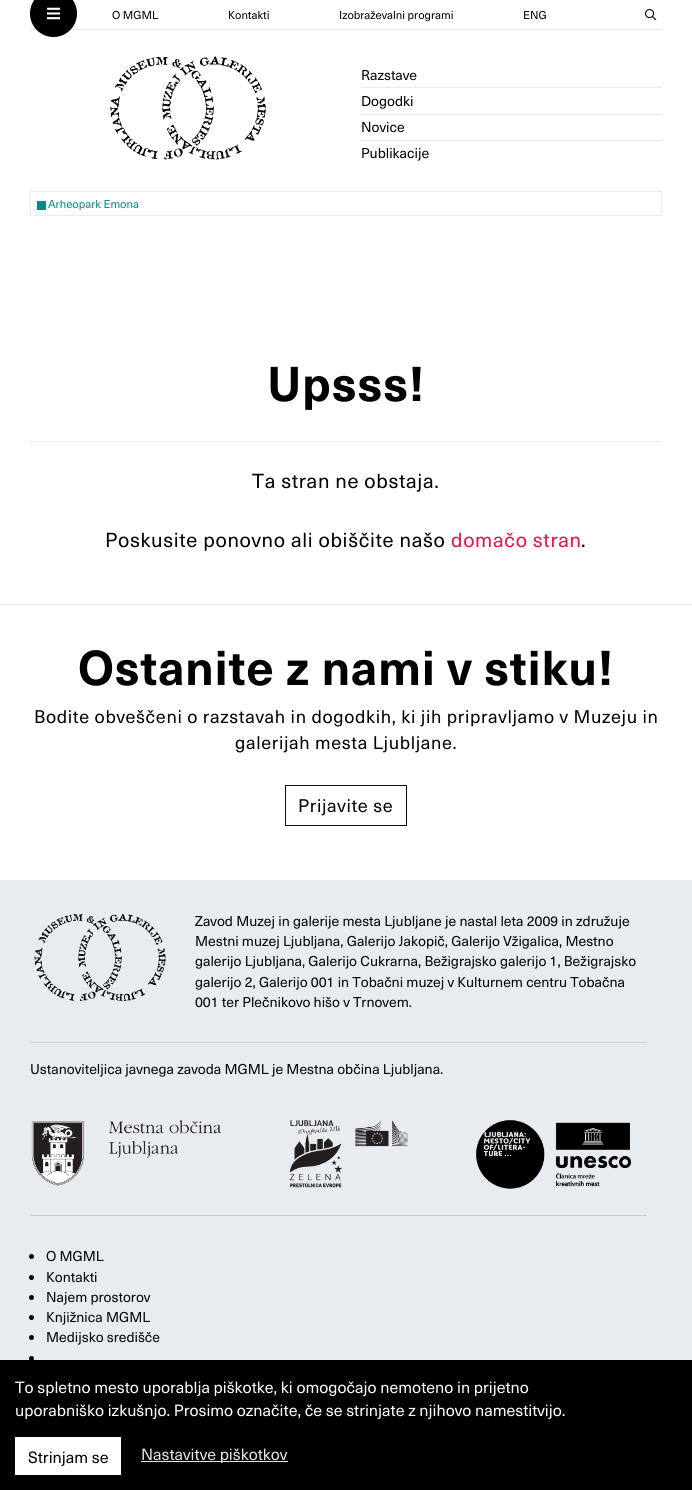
import math
import cairo

surface = cairo.ImageSurface(cairo.FORMAT_RGB24, 692, 1490)
ctx = cairo.Context(surface)
options = cairo.FontOptions()
options.set_hint_metrics(cairo.HINT_METRICS_OFF)
options.set_hint_style(cairo.HINT_STYLE_NONE)
ctx.set_font_options(options)
ctx.set_miter_limit(4)


def set_color(code):
    ctx.set_source_rgb(*(v / 255 for v in bytes.fromhex(code[-6:])))


def draw_text(x, y, s, family, size, color, bold=False, italic=False):
    ctx.select_font_face(family, cairo.FONT_SLANT_ITALIC if italic else cairo.FONT_SLANT_NORMAL, cairo.FONT_WEIGHT_BOLD if bold else cairo.FONT_WEIGHT_NORMAL)
    ctx.set_font_size(size)
    set_color(color)
    ctx.move_to(x, y)
    ctx.show_text(s)


def draw_spaced(x, y, s, letter, word):
    ctx.move_to(x, y)
    for ch in s:
        ctx.show_text(ch)
        ctx.rel_move_to(letter + word * (ch == ' '), 0)


def fill_rect(x, y, w, h, color):
    set_color(color)
    ctx.rectangle(x, y, w, h)
    ctx.fill()


def draw_image(path, x, y, w, h):
    ctx.save()
    ctx.set_source_surface(cairo.ImageSurface.create_from_png(path), x, y)
    ctx.rectangle(x, y, w, h)
    ctx.fill()
    ctx.restore()


set_color("#ffffff")
ctx.paint()
fill_rect(30, 29, 632, 1, "#e9ecef")
set_color("#000000")
ctx.arc(53.5, 13.5, 23, 0, 2 * math.pi)
ctx.fill_preserve()
ctx.set_line_width(1)
ctx.stroke()
draw_image("assets/img1.png", 47, 7, 14, 13)
draw_text(112, 19, "O MGML", "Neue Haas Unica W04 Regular", 11.25, "#000000")
draw_text(228, 19, "Kontakti", "Neue Haas Unica W04 Regular", 11.25, "#000000")
draw_text(339, 19, "Izobraževalni programi", "Neue Haas Unica W04 Regular", 11.25, "#000000")
draw_text(523, 19, "ENG", "Neue Haas Unica W04 Regular", 11.25, "#000000")
draw_image("assets/img2.png", 645, 9, 12, 12)
draw_image("assets/img3.png", 110, 56, 156, 104)
fill_rect(361, 87, 301, 1, "#eaeaeb")
draw_text(361, 80, "Razstave", "Neue Haas Unica W04 Regular", 14, "#000000")
fill_rect(361, 114, 301, 1, "#eaeaeb")
draw_text(361, 106, "Dogodki", "Neue Haas Unica W04 Regular", 14, "#000000")
fill_rect(361, 140, 301, 1, "#eaeaeb")
draw_text(361, 132, "Novice", "Neue Haas Unica W04 Regular", 14, "#000000")
draw_text(361, 158, "Publikacije", "Neue Haas Unica W04 Regular", 14, "#000000")
fill_rect(30, 191, 632, 1, "#e9ecef")
fill_rect(30, 191, 1, 25, "#e9ecef")
fill_rect(661, 192, 1, 24, "#e9ecef")
fill_rect(31, 215, 631, 1, "#e9ecef")
fill_rect(37, 201, 9, 9, "#008a84")
draw_text(48, 208, "Arheopark Emona", "Neue Haas Unica W04 Regular", 11.25, "#008a84")
fill_rect(0, 604, 692, 1, "#eaeaeb")
fill_rect(30, 441, 632, 1, "#eaeaeb")
ctx.select_font_face("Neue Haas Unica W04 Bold", cairo.FONT_SLANT_NORMAL, cairo.FONT_WEIGHT_BOLD)
ctx.set_font_size(48)
set_color("#000000")
draw_spaced(267, 401, "Upsss!", 0.65, 0)
ctx.select_font_face("Neue Haas Unica W04 Regular")
ctx.set_font_size(20)
draw_spaced(252, 488, "Ta stran ne obstaja.", 0.65, 0)
draw_spaced(105, 547, "Poskusite ponovno ali obiščite našo", 0.65, 0)
set_color("#f10e45")
draw_spaced(451, 547, "domačo stran", 0.65, 0)
set_color("#000000")
draw_spaced(581, 547, ".", 0.65, 0)
ctx.select_font_face("Neue Haas Unica W04 Bold", cairo.FONT_SLANT_NORMAL, cairo.FONT_WEIGHT_BOLD)
ctx.set_font_size(48)
draw_spaced(78, 685, "Ostanite z nami v stiku!", 0.65, 0)
ctx.select_font_face("Neue Haas Unica W04 Regular")
ctx.set_font_size(18)
draw_spaced(34, 723, "Bodite obveščeni o razstavah in dogodkih, ki jih pripravljamo v Muzeju in", 0.65, 0)
draw_spaced(235, 749, "galerijah mesta Ljubljane.", 0.65, 0)
ctx.rectangle(285.5, 785.5, 121, 40)
set_color("#0d0d0d")
ctx.stroke()
set_color("#000000")
draw_spaced(298, 812, "Prijavite se", 0.65, 0)
fill_rect(0, 881, 692, 479, "#e9ecef")
fill_rect(0, 880, 692, 1, "#eaeaeb")
draw_image("assets/img4.png", 34, 914, 132, 87)
draw_text(195, 926, "Zavod Muzej in galerije mesta Ljubljane je nastal leta 2009 in združuje", "Neue Haas Unica W04 Regular", 14, "#000000")
draw_text(195, 946, "Mestni muzej Ljubljana, Galerijo Jakopič, Galerijo Vžigalica, Mestno", "Neue Haas Unica W04 Regular", 14, "#000000")
draw_text(195, 966, "galerijo Ljubljana, Galerijo Cukrarna, Bežigrajsko galerijo 1, Bežigrajsko", "Neue Haas Unica W04 Regular", 14, "#000000")
draw_text(195, 987, "galerijo 2, Galerijo 001 in Tobačni muzej v Kulturnem centru Tobačna", "Neue Haas Unica W04 Regular", 14, "#000000")
draw_text(195, 1007, "001 ter Plečnikovo hišo v Trnovem.", "Neue Haas Unica W04 Regular", 14, "#000000")
fill_rect(30, 1042, 617, 1, "#d2d4d7")
draw_text(30, 1074, "Ustanoviteljica javnega zavoda MGML je Mestna občina Ljubljana.", "Neue Haas Unica W04 Regular", 14, "#000000")
draw_image("assets/img5.png", 31, 1120, 600, 69)
fill_rect(30, 1215, 617, 1, "#c9cbcc")
set_color("#000000")
ctx.arc(31.5, 1256.5, 2.5, 0, 2 * math.pi)
ctx.fill()
draw_text(46, 1261, "O MGML", "Neue Haas Unica W04 Regular", 14, "#000000")
ctx.new_path()
ctx.arc(31.5, 1277.5, 2.5, 0, 2 * math.pi)
ctx.fill()
draw_text(46, 1282, "Kontakti", "Neue Haas Unica W04 Regular", 14, "#000000")
ctx.new_path()
ctx.arc(31.5, 1297.5, 2.5, 0, 2 * math.pi)
ctx.fill()
draw_text(46, 1302, "Najem prostorov", "Neue Haas Unica W04 Regular", 14, "#000000")
ctx.new_path()
ctx.arc(31.5, 1317.5, 2.5, 0, 2 * math.pi)
ctx.fill()
draw_text(46, 1322, "Knjižnica MGML", "Neue Haas Unica W04 Regular", 14, "#000000")
ctx.new_path()
ctx.arc(31.5, 1337.5, 2.5, 0, 2 * math.pi)
ctx.fill()
draw_text(46, 1342, "Medijsko središče", "Neue Haas Unica W04 Regular", 14, "#000000")
ctx.new_path()
ctx.arc(31.5, 1358.5, 2.5, 0, 2 * math.pi)
ctx.fill()
fill_rect(0, 1360, 692, 130, "#000000")
draw_text(15, 1393, "To spletno mesto uporablja piškotke, ki omogočajo nemoteno in prijetno", "Neue Haas Unica W04 Regular", 16, "#ffffff")
draw_text(15, 1416, "uporabniško izkušnjo. Prosimo označite, če se strinjate z njihovo namestitvijo.", "Neue Haas Unica W04 Regular", 16, "#ffffff")
fill_rect(15, 1437, 106, 38, "#ffffff")
draw_text(28, 1463, "Strinjam se", "Neue Haas Unica W04 Regular", 16, "#000000")
fill_rect(141, 1461, 147, 1, "#e6e6e6")
draw_text(141, 1460, "Nastavitve piškotkov", "Neue Haas Unica W04 Regular", 16, "#e6e6e6")
surface.write_to_png("output.png")
